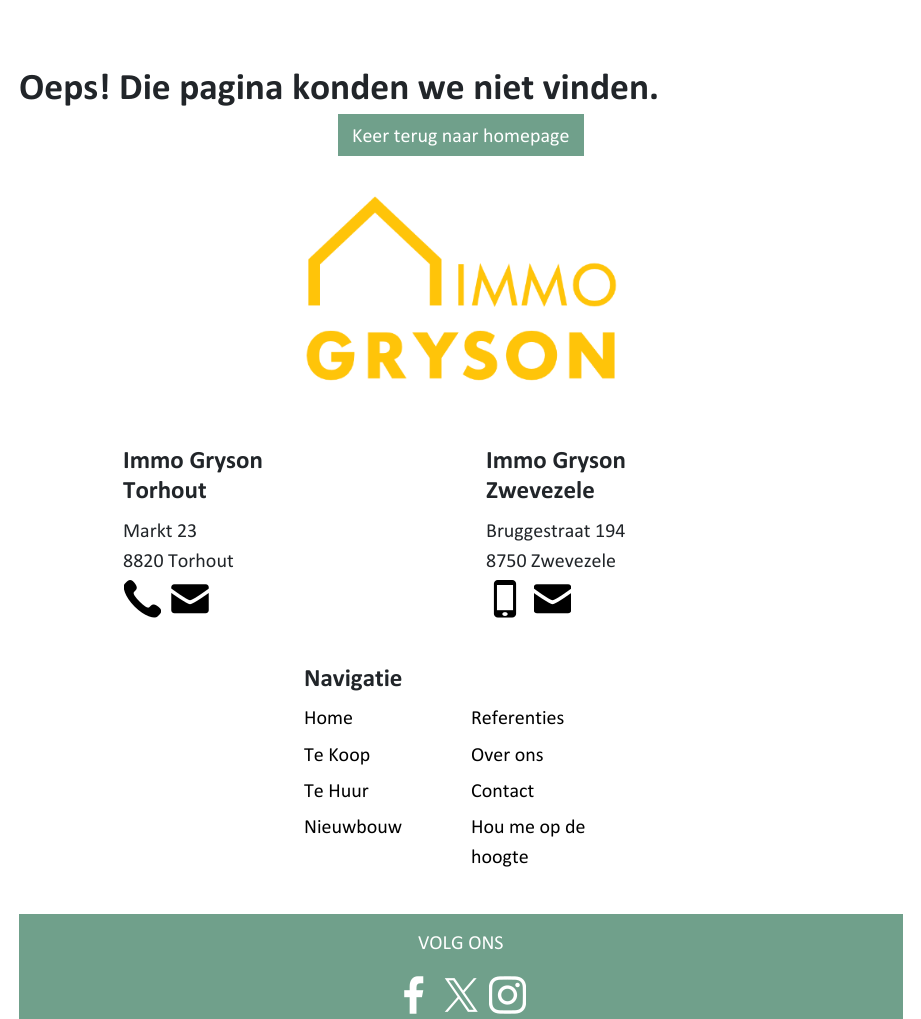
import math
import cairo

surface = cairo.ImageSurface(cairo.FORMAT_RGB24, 921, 1019)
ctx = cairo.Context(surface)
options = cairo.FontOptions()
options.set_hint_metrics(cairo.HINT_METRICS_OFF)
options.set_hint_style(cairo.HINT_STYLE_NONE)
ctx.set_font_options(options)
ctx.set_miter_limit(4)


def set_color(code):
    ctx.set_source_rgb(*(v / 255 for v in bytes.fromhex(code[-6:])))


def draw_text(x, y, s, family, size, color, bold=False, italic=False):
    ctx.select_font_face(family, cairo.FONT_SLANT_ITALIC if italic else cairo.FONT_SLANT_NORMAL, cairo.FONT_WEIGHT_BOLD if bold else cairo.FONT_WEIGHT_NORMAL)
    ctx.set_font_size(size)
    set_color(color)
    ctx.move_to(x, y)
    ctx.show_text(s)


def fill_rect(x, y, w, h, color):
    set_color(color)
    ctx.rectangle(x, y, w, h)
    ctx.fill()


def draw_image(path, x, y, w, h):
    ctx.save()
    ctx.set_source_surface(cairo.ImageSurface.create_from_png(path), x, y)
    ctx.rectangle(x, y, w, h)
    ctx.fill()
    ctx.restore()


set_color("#ffffff")
ctx.paint()
draw_text(19, 99, "Oeps! Die pagina konden we niet vinden.", "Calibri", 37.5, "#212529", bold=True)
fill_rect(338, 114, 246, 42, "#70a08b")
draw_text(352, 142, "Keer terug naar homepage", "Calibri", 20, "#ffffff")
draw_image("assets/img1.png", 306, 196, 311, 185)
draw_text(123, 468, "Immo Gryson", "Calibri", 25, "#212529", bold=True)
draw_text(123, 498, "Torhout", "Calibri", 25, "#212529", bold=True)
draw_text(123, 537, "Markt 23", "Calibri", 20, "#212529")
draw_text(123, 567, "8820 Torhout", "Calibri", 20, "#212529")
draw_image("assets/img2.png", 124, 580, 37, 38)
draw_image("assets/img3.png", 171, 584, 38, 30)
draw_text(486, 468, "Immo Gryson", "Calibri", 25, "#212529", bold=True)
draw_text(486, 498, "Zwevezele", "Calibri", 25, "#212529", bold=True)
draw_text(486, 537, "Bruggestraat 194", "Calibri", 20, "#212529")
draw_text(486, 567, "8750 Zwevezele", "Calibri", 20, "#212529")
draw_image("assets/img4.png", 493, 580, 24, 38)
draw_image("assets/img5.png", 534, 584, 37, 30)
draw_text(304, 686, "Navigatie", "Calibri", 25, "#212529", bold=True)
draw_text(304, 724, "Home", "Calibri", 20, "#000000")
draw_text(471, 724, "Referenties", "Calibri", 20, "#000000")
draw_text(304, 761, "Te Koop", "Calibri", 20, "#000000")
draw_text(471, 761, "Over ons", "Calibri", 20, "#000000")
draw_text(304, 797, "Te Huur", "Calibri", 20, "#000000")
draw_text(471, 797, "Contact", "Calibri", 20, "#000000")
draw_text(304, 833, "Nieuwbouw", "Calibri", 20, "#000000")
draw_text(471, 833, "Hou me op de", "Calibri", 20, "#000000")
draw_text(471, 863, "hoogte", "Calibri", 20, "#000000")
fill_rect(19, 914, 884, 105, "#70a08b")
draw_text(418, 949, "VOLG ONS", "Calibri", 20, "#ffffff")
draw_image("assets/img6.png", 404, 976, 20, 38)
draw_image("assets/img7.png", 444, 978, 34, 34)
draw_image("assets/img8.png", 489, 976, 37, 38)
surface.write_to_png("output.png")
